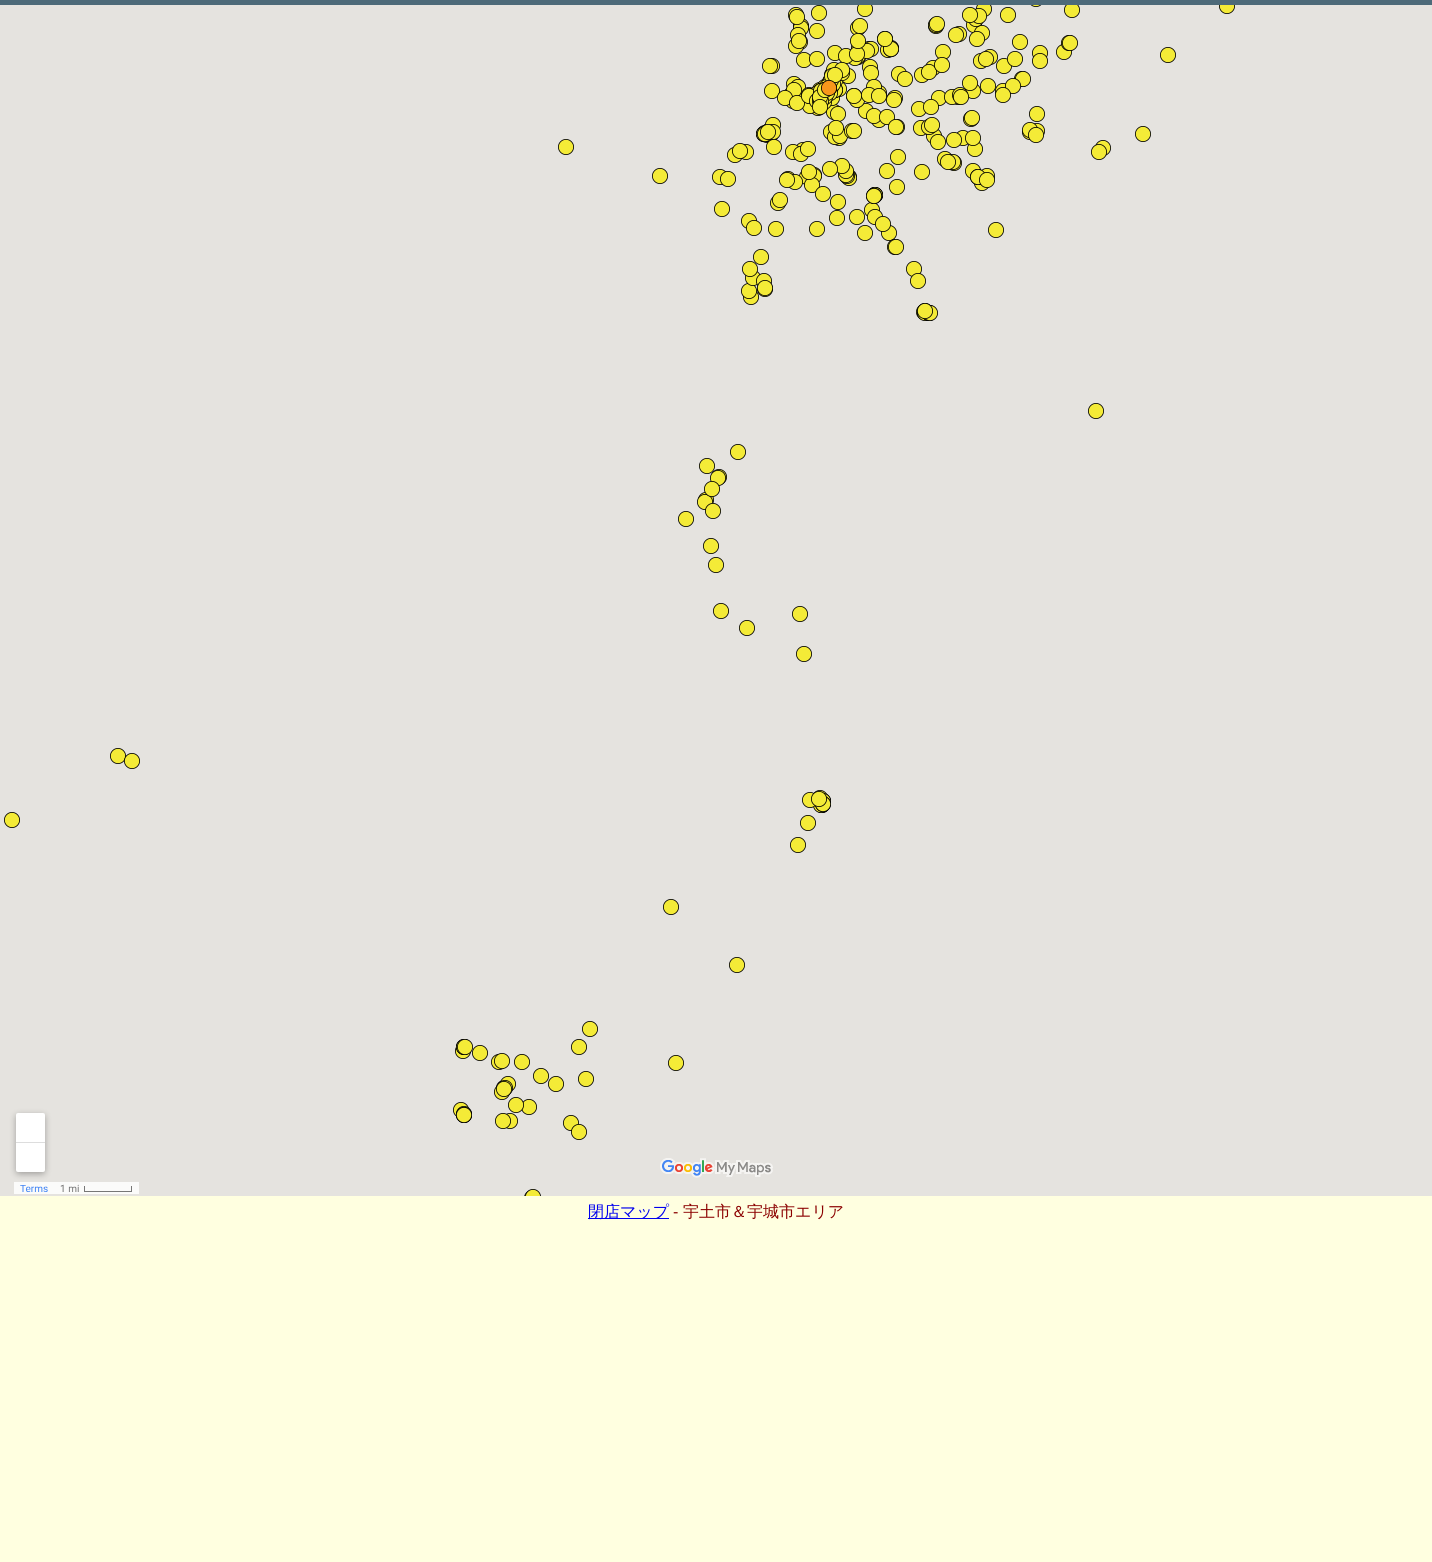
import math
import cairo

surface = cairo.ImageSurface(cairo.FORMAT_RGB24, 1432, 1562)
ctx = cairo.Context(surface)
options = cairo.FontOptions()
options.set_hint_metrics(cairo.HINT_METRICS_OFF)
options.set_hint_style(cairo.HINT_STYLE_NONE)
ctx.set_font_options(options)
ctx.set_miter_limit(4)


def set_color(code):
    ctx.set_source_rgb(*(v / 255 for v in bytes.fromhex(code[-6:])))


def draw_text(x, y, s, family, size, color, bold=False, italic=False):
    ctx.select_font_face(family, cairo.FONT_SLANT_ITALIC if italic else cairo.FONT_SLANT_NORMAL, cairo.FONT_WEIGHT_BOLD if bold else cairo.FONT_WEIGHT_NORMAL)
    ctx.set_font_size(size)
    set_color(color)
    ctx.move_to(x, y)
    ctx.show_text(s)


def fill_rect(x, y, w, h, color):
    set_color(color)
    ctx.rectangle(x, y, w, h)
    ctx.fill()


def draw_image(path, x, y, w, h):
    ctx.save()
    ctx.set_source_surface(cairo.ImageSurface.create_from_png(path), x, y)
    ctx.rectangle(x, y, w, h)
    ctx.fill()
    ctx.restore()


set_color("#ffffe0")
ctx.paint()
draw_image("assets/img1.png", 0, 0, 1432, 1196)
fill_rect(588, 1218, 81, 1, "#0000ee")
draw_text(588, 1217, "閉店マップ", "WenQuanYi Zen Hei Medium", 16, "#0000ee")
draw_text(673, 1217, "-", "Liberation Sans", 16, "#8b0000")
draw_text(683, 1217, "宇土市＆宇城市エリア", "WenQuanYi Zen Hei Medium", 16, "#8b0000")
surface.write_to_png("output.png")
